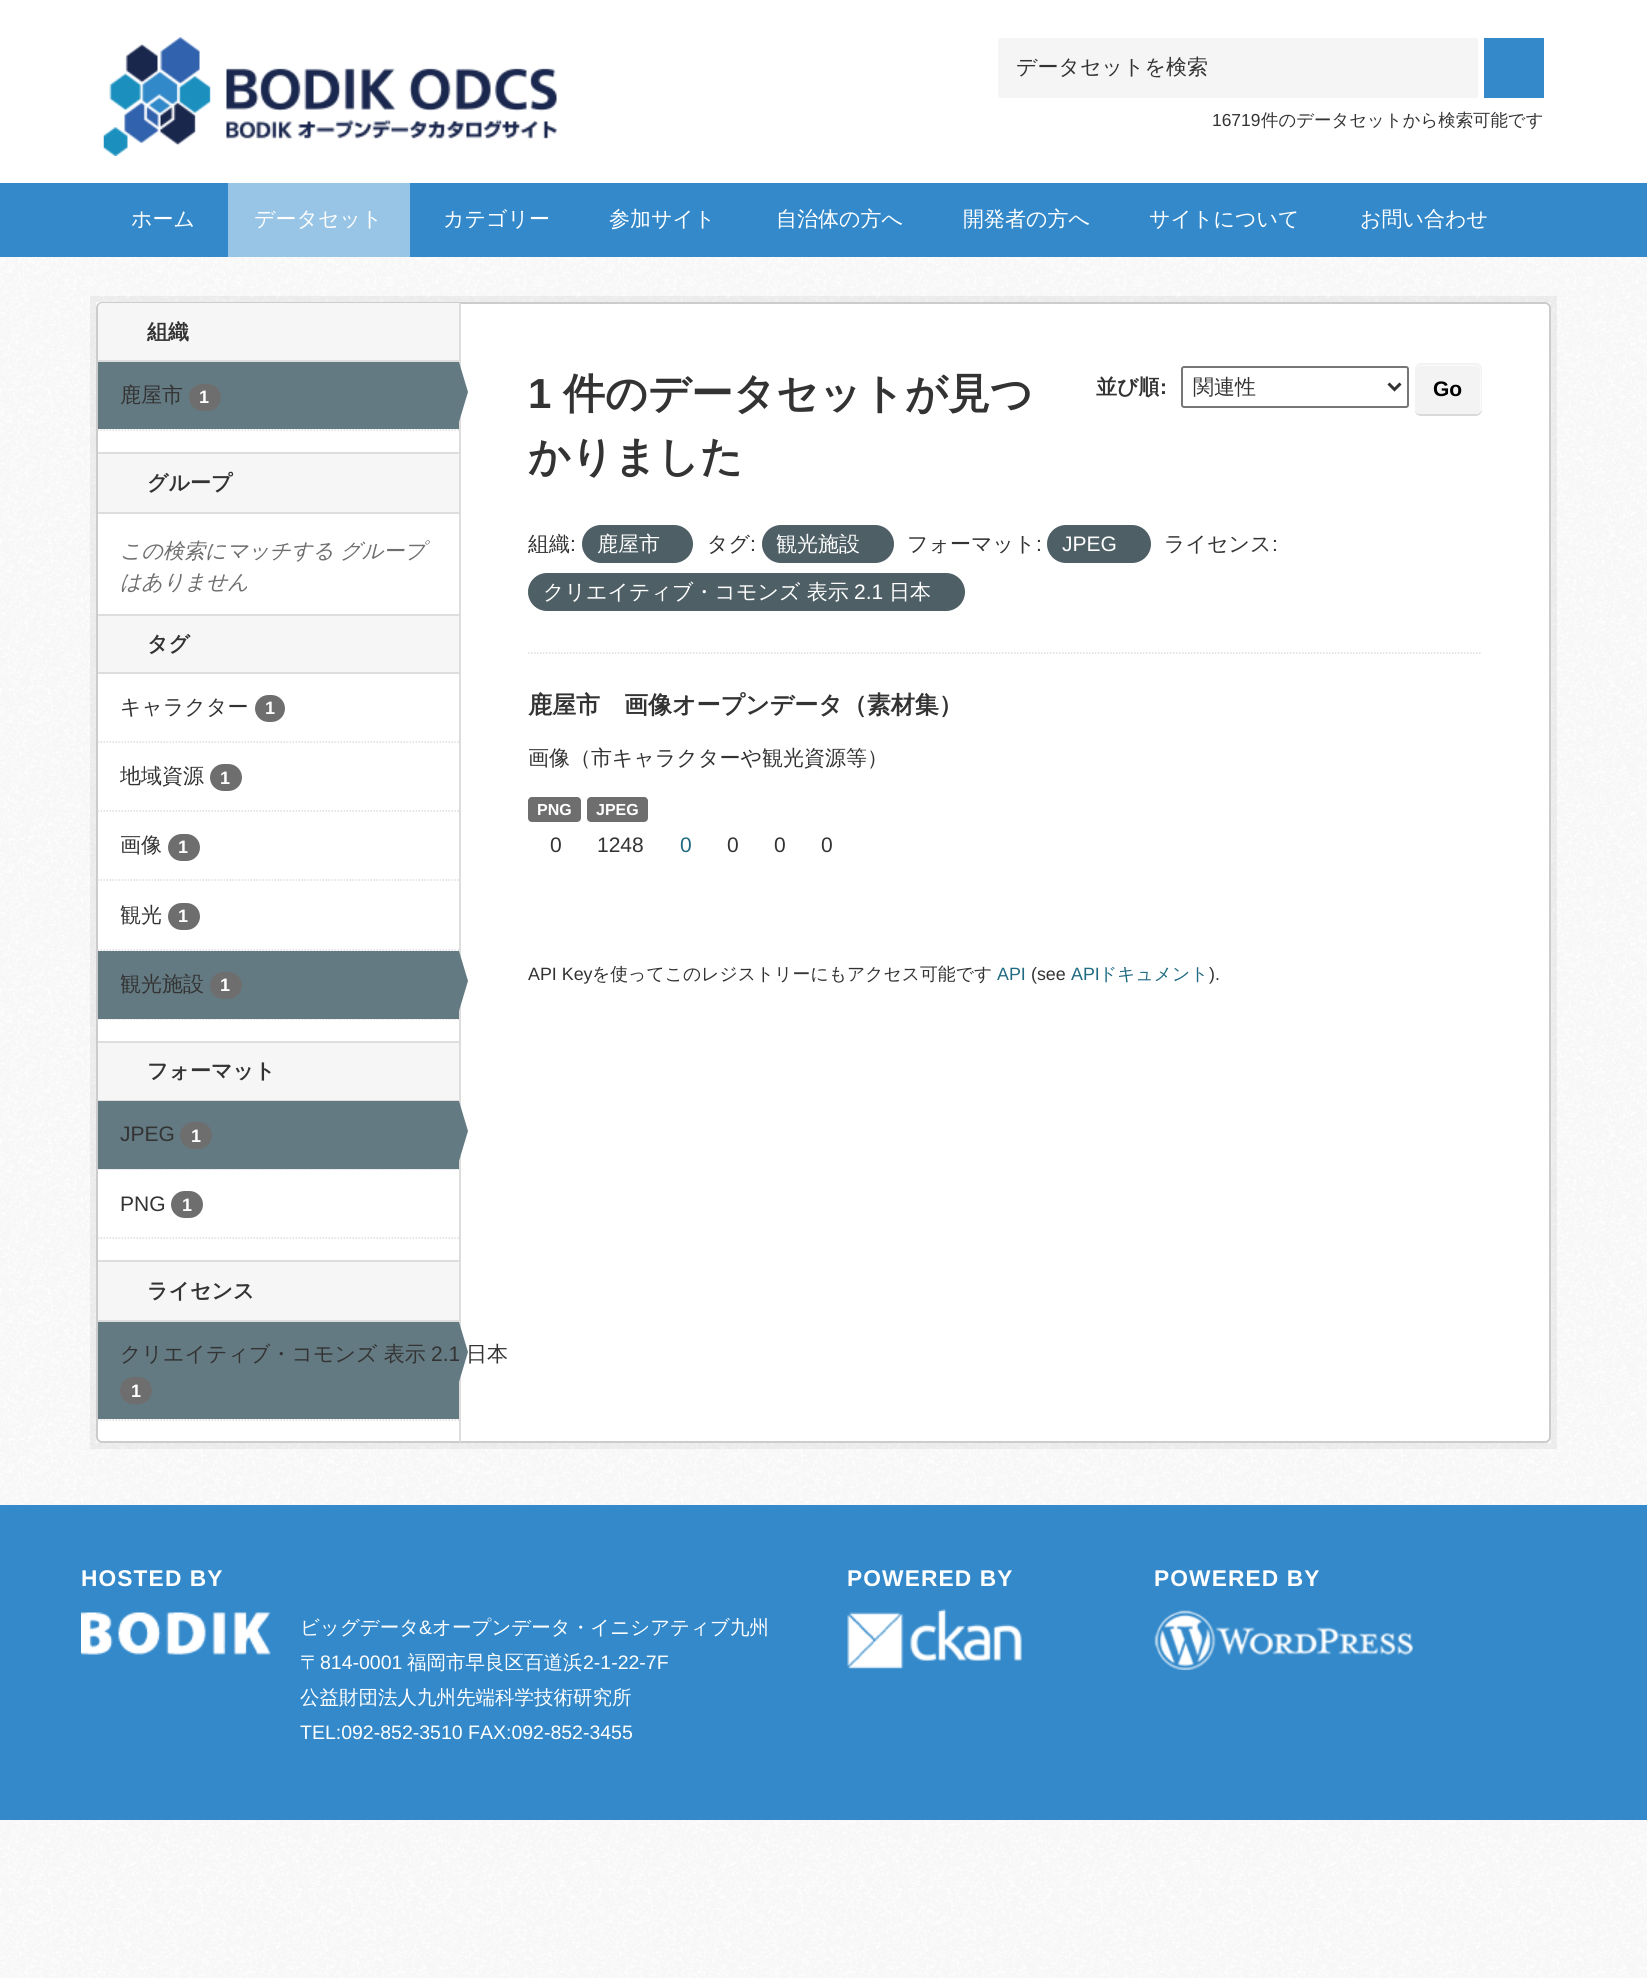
import math
import cairo

surface = cairo.ImageSurface(cairo.FORMAT_RGB24, 1647, 1978)
ctx = cairo.Context(surface)
options = cairo.FontOptions()
options.set_hint_metrics(cairo.HINT_METRICS_OFF)
options.set_hint_style(cairo.HINT_STYLE_NONE)
ctx.set_font_options(options)
ctx.set_miter_limit(4)


def set_color(code):
    ctx.set_source_rgb(*(v / 255 for v in bytes.fromhex(code[-6:])))


def draw_text(x, y, s, family, size, color, bold=False, italic=False):
    ctx.select_font_face(family, cairo.FONT_SLANT_ITALIC if italic else cairo.FONT_SLANT_NORMAL, cairo.FONT_WEIGHT_BOLD if bold else cairo.FONT_WEIGHT_NORMAL)
    ctx.set_font_size(size)
    set_color(color)
    ctx.move_to(x, y)
    ctx.show_text(s)


def draw_spaced(x, y, s, letter, word):
    ctx.move_to(x, y)
    for ch in s:
        ctx.show_text(ch)
        ctx.rel_move_to(letter + word * (ch == ' '), 0)


def fill_rect(x, y, w, h, color):
    set_color(color)
    ctx.rectangle(x, y, w, h)
    ctx.fill()


def rounded_rect(x, y, w, h, r):
    ctx.new_sub_path()
    for i, (u, v) in enumerate([(x + w - r, y + h - r), (x + r, y + h - r), (x + r, y + r), (x + w - r, y + r)]):
        ctx.arc(u, v, r, i * math.pi / 2, (i + 1) * math.pi / 2)
    ctx.close_path()


def draw_image(path, x, y, w, h):
    ctx.save()
    ctx.set_source_surface(cairo.ImageSurface.create_from_png(path), x, y)
    ctx.rectangle(x, y, w, h)
    ctx.fill()
    ctx.restore()


set_color("#ffffff")
ctx.paint()
draw_image("assets/img1.png", 0, 257, 1647, 1721)
draw_image("assets/img2.png", 103, 37, 454, 119)
set_color("#f5f5f5")
rounded_rect(998, 38, 480, 60, 1.5)
ctx.fill()
draw_text(1016, 74, "データセットを検索", "WenQuanYi Zen Hei Medium", 21, "#333333")
fill_rect(1484, 38, 60, 60, "#3389ca")
draw_text(1212, 126, "16719", "Liberation Sans", 17.4, "#333333")
draw_text(1261, 126, "件のデータセットから検索可能です", "WenQuanYi Zen Hei Medium", 17.4, "#333333")
fill_rect(0, 183, 1647, 74, "#3389ca")
draw_text(131, 226, "ホーム", "WenQuanYi Zen Hei Medium", 21, "#ffffff")
fill_rect(228, 183, 182, 74, "#98c4e5")
draw_text(254, 226, "データセット", "WenQuanYi Zen Hei Medium", 21, "#ffffff")
draw_text(443, 226, "カテゴリー", "WenQuanYi Zen Hei Medium", 21, "#ffffff")
draw_text(609, 226, "参加サイト", "WenQuanYi Zen Hei Medium", 21, "#ffffff")
draw_text(776, 226, "自治体の方へ", "WenQuanYi Zen Hei Medium", 21, "#ffffff")
draw_text(963, 226, "開発者の方へ", "WenQuanYi Zen Hei Medium", 21, "#ffffff")
draw_text(1149, 226, "サイトについて", "WenQuanYi Zen Hei Medium", 21, "#ffffff")
draw_text(1360, 226, "お問い合わせ", "WenQuanYi Zen Hei Medium", 21, "#ffffff")
ctx.rectangle(93, 299, 1461, 1147)
ctx.set_source_rgba(0, 0, 0, 0.05)
ctx.set_line_width(6)
ctx.stroke()
set_color("#ffffff")
rounded_rect(97, 303, 1453, 1139, 5)
ctx.fill_preserve()
set_color("#cccccc")
ctx.set_line_width(2)
ctx.stroke()
fill_rect(459, 303, 2, 1139, "#dddddd")
set_color("#f6f6f6")
ctx.new_path()
ctx.move_to(103, 303)
ctx.line_to(459, 303)
ctx.line_to(459, 362)
ctx.line_to(98, 362)
ctx.line_to(98, 308)
ctx.curve_to(98, 305, 100, 303, 103, 303)
ctx.close_path()
ctx.fill()
fill_rect(98, 360, 361, 2, "#dddddd")
draw_text(147, 339, "組織", "WenQuanYi Zen Hei", 21, "#333333", bold=True)
fill_rect(98, 362, 361, 67, "#647a82")
draw_text(120, 402, "鹿屋市", "WenQuanYi Zen Hei Medium", 21, "#333333")
set_color("#6e6e6e")
rounded_rect(189, 384, 32, 27, 13.5)
ctx.fill()
draw_text(199, 403, "1", "Liberation Sans", 18, "#ffffff", bold=True)
set_color("#647a82")
ctx.new_path()
ctx.move_to(459, 422)
ctx.line_to(459, 362)
ctx.line_to(468, 392)
ctx.close_path()
ctx.fill()
ctx.new_path()
ctx.move_to(97.5, 430)
ctx.line_to(459, 430)
set_color("#dddddd")
ctx.set_line_width(1.5)
ctx.set_dash([1.5, 1.5])
ctx.stroke()
fill_rect(98, 454, 361, 58, "#f6f6f6")
fill_rect(98, 452, 361, 2, "#dddddd")
fill_rect(98, 512, 361, 2, "#dddddd")
draw_text(147, 490, "グループ", "WenQuanYi Zen Hei", 21, "#333333", bold=True)
draw_text(120, 558, "この検索にマッチする グループ", "WenQuanYi Zen Hei Medium", 21, "#6e6e6e", italic=True)
draw_text(120, 589, "はありません", "WenQuanYi Zen Hei Medium", 21, "#6e6e6e", italic=True)
fill_rect(98, 616, 361, 56, "#f6f6f6")
fill_rect(98, 614, 361, 2, "#dddddd")
fill_rect(98, 672, 361, 2, "#dddddd")
draw_text(147, 651, "タグ", "WenQuanYi Zen Hei", 21, "#333333", bold=True)
ctx.new_path()
ctx.move_to(97.5, 742)
ctx.line_to(459, 742)
set_color("#dddddd")
ctx.stroke()
draw_text(120, 714, "キャラクター", "WenQuanYi Zen Hei Medium", 21, "#333333")
set_color("#6e6e6e")
rounded_rect(255, 695, 30, 27, 13.5)
ctx.fill()
draw_text(265, 714, "1", "Liberation Sans", 18, "#ffffff", bold=True)
ctx.new_path()
ctx.move_to(97.5, 811)
ctx.line_to(459, 811)
set_color("#dddddd")
ctx.stroke()
draw_text(120, 783, "地域資源", "WenQuanYi Zen Hei Medium", 21, "#333333")
set_color("#6e6e6e")
rounded_rect(210, 764, 32, 27, 13.5)
ctx.fill()
draw_text(220, 784, "1", "Liberation Sans", 18, "#ffffff", bold=True)
ctx.new_path()
ctx.move_to(97.5, 880)
ctx.line_to(459, 880)
set_color("#dddddd")
ctx.stroke()
draw_text(120, 852, "画像", "WenQuanYi Zen Hei Medium", 21, "#333333")
set_color("#6e6e6e")
rounded_rect(168, 834, 32, 27, 13.5)
ctx.fill()
draw_text(178, 853, "1", "Liberation Sans", 18, "#ffffff", bold=True)
ctx.new_path()
ctx.move_to(97.5, 950)
ctx.line_to(459, 950)
set_color("#dddddd")
ctx.stroke()
draw_text(120, 922, "観光", "WenQuanYi Zen Hei Medium", 21, "#333333")
set_color("#6e6e6e")
rounded_rect(168, 903, 32, 27, 13.5)
ctx.fill()
draw_text(178, 922, "1", "Liberation Sans", 18, "#ffffff", bold=True)
ctx.new_path()
ctx.move_to(97.5, 1019)
ctx.line_to(459, 1019)
set_color("#dddddd")
ctx.stroke()
fill_rect(98, 951, 361, 68, "#647a82")
draw_text(120, 991, "観光施設", "WenQuanYi Zen Hei Medium", 21, "#333333")
set_color("#6e6e6e")
rounded_rect(210, 972, 32, 27, 13.5)
ctx.fill()
draw_text(220, 991, "1", "Liberation Sans", 18, "#ffffff", bold=True)
set_color("#647a82")
ctx.new_path()
ctx.move_to(459, 1011)
ctx.line_to(459, 951)
ctx.line_to(468, 981)
ctx.close_path()
ctx.fill()
fill_rect(98, 1043, 361, 57, "#f6f6f6")
fill_rect(98, 1041, 361, 2, "#dddddd")
fill_rect(98, 1100, 361, 1, "#dddddd")
draw_text(147, 1078, "フォーマット", "WenQuanYi Zen Hei", 21, "#333333", bold=True)
fill_rect(98, 1169, 361, 1, "#f6f6f6")
ctx.new_path()
ctx.move_to(97.5, 1169)
ctx.line_to(459, 1169)
set_color("#dddddd")
ctx.stroke()
fill_rect(98, 1101, 361, 68, "#647a82")
draw_text(120, 1141, "JPEG", "Liberation Sans", 21, "#333333")
set_color("#6e6e6e")
rounded_rect(180, 1122, 32, 27, 13.5)
ctx.fill()
draw_text(191, 1142, "1", "Liberation Sans", 18, "#ffffff", bold=True)
set_color("#647a82")
ctx.new_path()
ctx.move_to(459, 1161)
ctx.line_to(459, 1101)
ctx.line_to(468, 1131)
ctx.close_path()
ctx.fill()
draw_text(120, 1211, "PNG", "Liberation Sans", 21, "#333333")
set_color("#6e6e6e")
rounded_rect(171, 1191, 32, 27, 13.5)
ctx.fill()
draw_text(182, 1211, "1", "Liberation Sans", 18, "#ffffff", bold=True)
ctx.new_path()
ctx.move_to(97.5, 1238)
ctx.line_to(459, 1238)
set_color("#dddddd")
ctx.stroke()
fill_rect(98, 1262, 361, 58, "#f6f6f6")
fill_rect(98, 1260, 361, 2, "#dddddd")
fill_rect(98, 1320, 361, 2, "#dddddd")
draw_text(147, 1298, "ライセンス", "WenQuanYi Zen Hei", 21, "#333333", bold=True)
fill_rect(98, 1322, 361, 97, "#647a82")
draw_text(120, 1361, "クリエイティブ・コモンズ 表示", "WenQuanYi Zen Hei Medium", 21, "#333333")
draw_text(431, 1361, "2.1", "Liberation Sans", 21, "#333333")
set_color("#647a82")
ctx.new_path()
ctx.move_to(459, 1382)
ctx.line_to(459, 1322)
ctx.line_to(468, 1352)
ctx.close_path()
ctx.fill()
draw_text(466, 1361, "日本", "WenQuanYi Zen Hei Medium", 21, "#333333")
set_color("#6e6e6e")
rounded_rect(120, 1377, 32, 27, 13.5)
ctx.fill()
draw_text(131, 1397, "1", "Liberation Sans", 18, "#ffffff", bold=True)
ctx.new_path()
ctx.move_to(97.5, 1420)
ctx.line_to(459, 1420)
set_color("#dddddd")
ctx.stroke()
ctx.new_path()
ctx.move_to(528, 653)
ctx.line_to(1482, 653)
ctx.stroke()
draw_text(528, 408, "1", "Liberation Sans", 42, "#333333", bold=True)
draw_text(563, 408, "件のデータセットが見つ", "WenQuanYi Zen Hei", 42, "#333333", bold=True)
draw_text(528, 471, "かりました", "WenQuanYi Zen Hei", 42, "#333333", bold=True)
draw_text(1096, 394, "並び順", "WenQuanYi Zen Hei", 21, "#333333", bold=True)
draw_text(1160, 394, ":", "Liberation Sans", 21, "#333333", bold=True)
rounded_rect(1182, 367, 226, 40, 2)
set_color("#767676")
ctx.set_line_width(2)
ctx.set_dash([])
ctx.stroke()
ctx.new_path()
ctx.move_to(1388.5, 383.5)
ctx.line_to(1394.5, 389.5)
ctx.line_to(1400.5, 383.5)
set_color("#333333")
ctx.set_line_width(3)
ctx.stroke()
draw_text(1193, 394, "関連性", "WenQuanYi Zen Hei Medium", 21, "#333333")
set_color("#d9d9d9")
ctx.new_path()
ctx.move_to(1415, 410)
ctx.curve_to(1415, 414, 1418, 416, 1421, 416)
ctx.line_to(1476, 416)
ctx.curve_to(1479, 416, 1482, 413, 1482, 410)
ctx.line_to(1482, 408)
ctx.curve_to(1482, 411, 1479, 414, 1476, 414)
ctx.line_to(1420, 414)
ctx.curve_to(1418, 414, 1416, 413, 1415, 410)
ctx.close_path()
ctx.fill()
set_color("#f3f3f3")
rounded_rect(1415, 363, 67, 51, 6)
ctx.fill()
set_color("#fafafa")
ctx.new_path()
ctx.move_to(1420, 366)
ctx.line_to(1467, 366)
ctx.curve_to(1483, 366, 1480, 366, 1480, 383)
ctx.line_to(1480, 411)
ctx.curve_to(1481, 410, 1481, 409, 1481, 408)
ctx.line_to(1481, 370)
ctx.curve_to(1481, 367, 1479, 365, 1476, 365)
ctx.line_to(1421, 365)
ctx.curve_to(1418, 365, 1416, 367, 1416, 370)
ctx.curve_to(1416, 368, 1418, 366, 1420, 366)
ctx.close_path()
ctx.fill()
draw_text(1433, 396, "Go", "Liberation Sans", 21, "#000000", bold=True)
draw_text(528, 551, "組織", "WenQuanYi Zen Hei Medium", 21, "#333333")
draw_text(570, 551, ":", "Liberation Sans", 21, "#333333")
set_color("#4e5f65")
rounded_rect(582, 525, 111, 38, 19)
ctx.fill()
draw_text(597, 551, "鹿屋市", "WenQuanYi Zen Hei Medium", 21, "#ffffff")
draw_text(707, 551, "タグ", "WenQuanYi Zen Hei Medium", 21, "#333333")
draw_text(750, 551, ":", "Liberation Sans", 21, "#333333")
set_color("#4e5f65")
rounded_rect(762, 525, 132, 38, 19)
ctx.fill()
draw_text(776, 551, "観光施設", "WenQuanYi Zen Hei Medium", 21, "#ffffff")
draw_text(907, 551, "フォーマット", "WenQuanYi Zen Hei Medium", 21, "#333333")
draw_text(1036, 551, ":", "Liberation Sans", 21, "#333333")
set_color("#4e5f65")
rounded_rect(1047, 525, 104, 38, 19)
ctx.fill()
draw_text(1062, 551, "JPEG", "Liberation Sans", 21, "#ffffff")
draw_text(1164, 551, "ライセンス", "WenQuanYi Zen Hei Medium", 21, "#333333")
draw_text(1272, 551, ":", "Liberation Sans", 21, "#333333")
set_color("#4e5f65")
rounded_rect(528, 573, 437, 38, 19)
ctx.fill()
draw_text(543, 599, "クリエイティブ・コモンズ 表示", "WenQuanYi Zen Hei Medium", 21, "#ffffff")
draw_text(854, 599, "2.1", "Liberation Sans", 21, "#ffffff")
draw_text(889, 599, "日本", "WenQuanYi Zen Hei Medium", 21, "#ffffff")
draw_text(528, 713, "鹿屋市　画像オープンデータ（素材集）", "WenQuanYi Zen Hei", 24, "#333333", bold=True)
draw_text(528, 765, "画像（市キャラクターや観光資源等）", "WenQuanYi Zen Hei Medium", 21, "#333333")
set_color("#6e6e6e")
rounded_rect(528, 797, 53, 25, 4)
ctx.fill()
draw_text(537, 815, "PNG", "Liberation Sans", 16, "#ffffff", bold=True)
set_color("#6e6e6e")
rounded_rect(587, 797, 61, 25, 4)
ctx.fill()
draw_text(596, 815, "JPEG", "Liberation Sans", 16, "#ffffff", bold=True)
draw_text(550, 852, "0", "Liberation Sans", 21, "#333333")
draw_text(597, 852, "1248", "Liberation Sans", 21, "#333333")
draw_text(680, 852, "0", "Liberation Sans", 21, "#206b82")
draw_text(727, 852, "0", "Liberation Sans", 21, "#333333")
draw_text(774, 852, "0", "Liberation Sans", 21, "#333333")
draw_text(821, 852, "0", "Liberation Sans", 21, "#333333")
draw_text(528, 980, "API Key", "Liberation Sans", 17.85, "#333333")
draw_text(592, 980, "を使ってこのレジストリーにもアクセス可能です", "WenQuanYi Zen Hei Medium", 17.85, "#333333")
draw_text(997, 980, "API", "Liberation Sans", 17.85, "#206b82")
draw_text(1031, 980, "(see", "Liberation Sans", 17.85, "#333333")
draw_text(1071, 980, "API", "Liberation Sans", 17.85, "#206b82")
draw_text(1099, 980, "ドキュメント", "WenQuanYi Zen Hei Medium", 17.85, "#206b82")
draw_text(1209, 980, ").", "Liberation Sans", 17.85, "#333333")
fill_rect(0, 1505, 1647, 315, "#3389ca")
ctx.select_font_face("Liberation Sans", cairo.FONT_SLANT_NORMAL, cairo.FONT_WEIGHT_BOLD)
ctx.set_font_size(22.75)
set_color("#ffffff")
draw_spaced(81, 1586, "HOSTED BY", 1.1, 0)
draw_image("assets/img3.png", 81, 1612, 190, 43)
draw_text(300, 1634, "ビッグデータ", "WenQuanYi Zen Hei Medium", 19.5, "#ffffff")
draw_text(419, 1634, "&", "Liberation Sans", 19.5, "#ffffff")
draw_text(432, 1634, "オープンデータ・イニシアティブ九州", "WenQuanYi Zen Hei Medium", 19.5, "#ffffff")
draw_text(300, 1669, "〒", "WenQuanYi Zen Hei Medium", 19.5, "#ffffff")
draw_text(320, 1669, "814-0001", "Liberation Sans", 19.5, "#ffffff")
draw_text(407, 1669, "福岡市早良区百道浜", "WenQuanYi Zen Hei Medium", 19.5, "#ffffff")
draw_text(583, 1669, "2-1-22-7F", "Liberation Sans", 19.5, "#ffffff")
draw_text(300, 1704, "公益財団法人九州先端科学技術研究所", "WenQuanYi Zen Hei Medium", 19.5, "#ffffff")
draw_text(300, 1739, "TEL:092-852-3510 FAX:092-852-3455", "Liberation Sans", 19.5, "#ffffff")
ctx.select_font_face("Liberation Sans", cairo.FONT_SLANT_NORMAL, cairo.FONT_WEIGHT_BOLD)
ctx.set_font_size(22.75)
draw_spaced(847, 1586, "POWERED BY", 1.1, 0)
draw_image("assets/img4.png", 847, 1609, 175, 60)
draw_spaced(1154, 1586, "POWERED BY", 1.1, 0)
draw_image("assets/img5.png", 1154, 1610, 259, 61)
surface.write_to_png("output.png")
